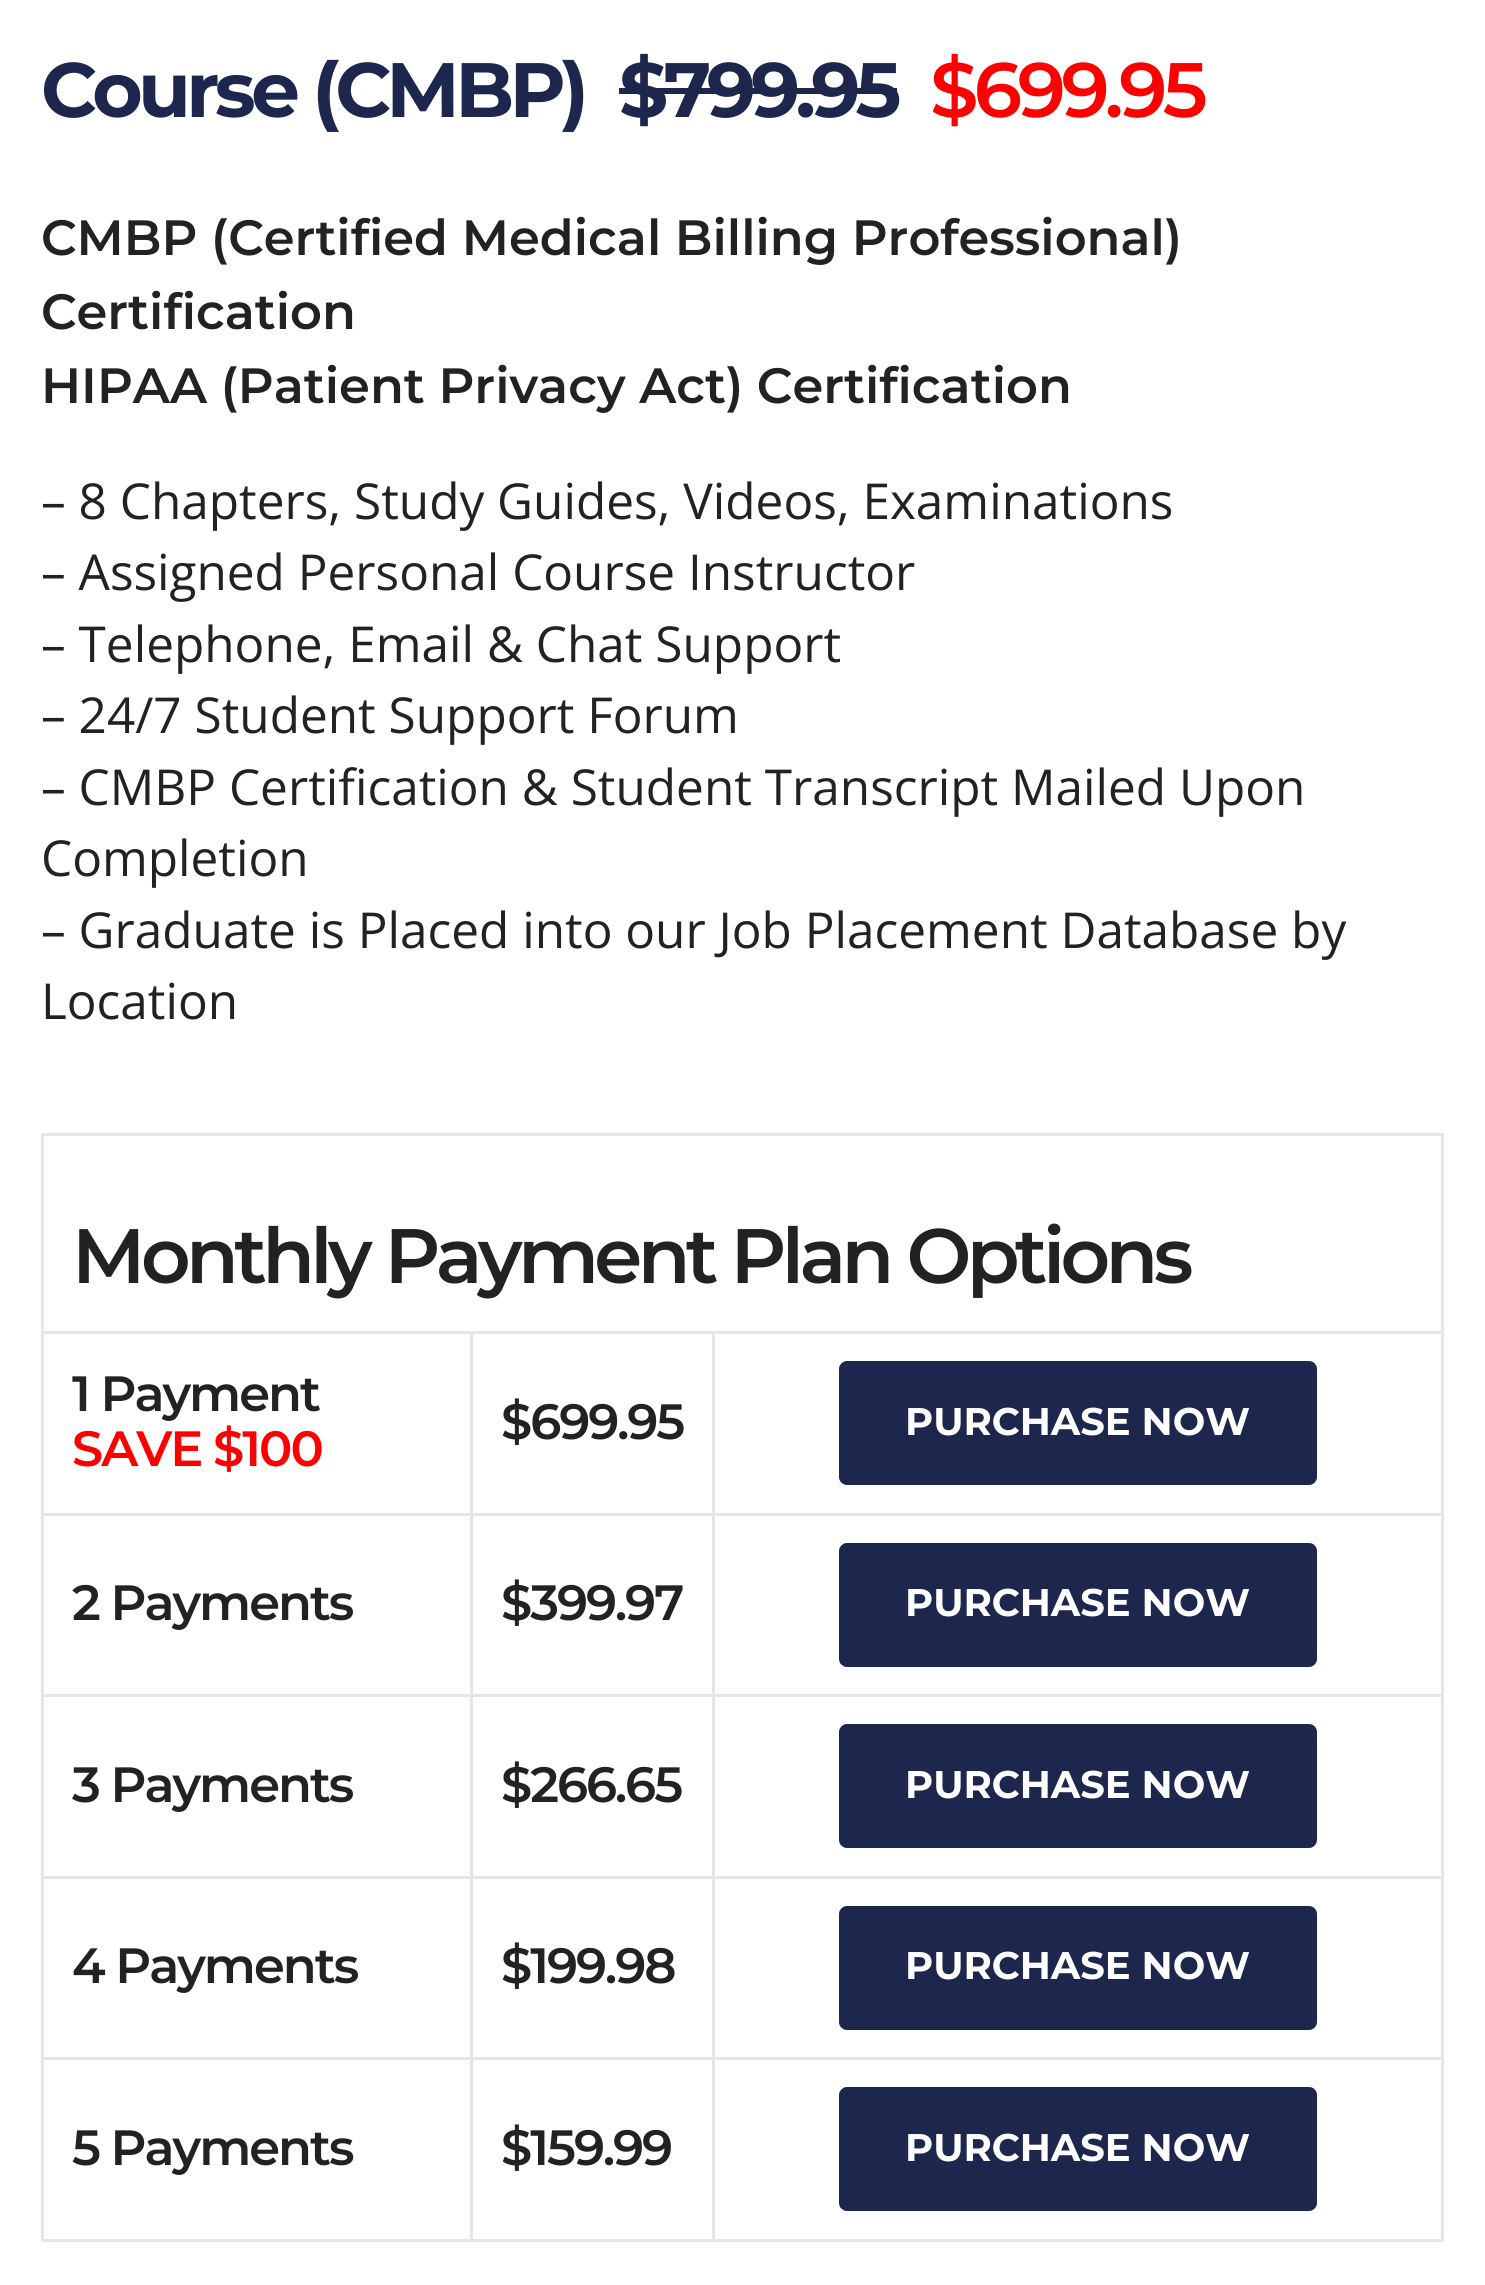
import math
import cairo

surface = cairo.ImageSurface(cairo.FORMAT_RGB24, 1485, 2285)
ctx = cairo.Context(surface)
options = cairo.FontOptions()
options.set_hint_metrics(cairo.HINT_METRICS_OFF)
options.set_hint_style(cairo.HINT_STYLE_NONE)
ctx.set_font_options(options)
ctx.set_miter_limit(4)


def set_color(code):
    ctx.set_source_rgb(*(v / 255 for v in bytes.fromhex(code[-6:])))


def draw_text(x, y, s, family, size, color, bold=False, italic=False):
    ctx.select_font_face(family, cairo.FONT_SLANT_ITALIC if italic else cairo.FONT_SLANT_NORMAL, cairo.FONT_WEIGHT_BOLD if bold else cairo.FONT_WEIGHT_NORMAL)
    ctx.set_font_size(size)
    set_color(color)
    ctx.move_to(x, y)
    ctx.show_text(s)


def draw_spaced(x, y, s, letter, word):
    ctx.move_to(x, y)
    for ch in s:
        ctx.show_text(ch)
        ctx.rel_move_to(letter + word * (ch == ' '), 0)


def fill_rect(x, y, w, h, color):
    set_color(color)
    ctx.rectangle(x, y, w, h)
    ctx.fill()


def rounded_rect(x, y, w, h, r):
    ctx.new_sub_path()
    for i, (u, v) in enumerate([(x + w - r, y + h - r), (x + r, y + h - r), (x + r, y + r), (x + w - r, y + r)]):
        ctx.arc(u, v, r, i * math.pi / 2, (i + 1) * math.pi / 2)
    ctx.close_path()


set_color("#ffffff")
ctx.paint()
ctx.select_font_face("Montserrat", cairo.FONT_SLANT_NORMAL, cairo.FONT_WEIGHT_BOLD)
ctx.set_font_size(77)
set_color("#1d264d")
draw_spaced(41, 117, "Course (CMBP)", -4.6, 0)
draw_spaced(619, 117, "$799.95", -4.6, 0)
fill_rect(619, 88, 278, 6, "#1d264d")
ctx.select_font_face("Montserrat SemiBold")
set_color("#ff0000")
draw_spaced(930, 117, "$699.95", -4.6, 0)
draw_text(41, 255, "CMBP (Certified Medical Billing Professional)", "Montserrat SemiBold", 49.5, "#222222")
draw_text(41, 329, "Certification", "Montserrat SemiBold", 49.5, "#222222")
draw_text(41, 403, "HIPAA (Patient Privacy Act) Certification", "Montserrat SemiBold", 49.5, "#222222")
draw_text(41, 519, "– 8 Chapters, Study Guides, Videos, Examinations", "Open Sans", 49.5, "#222222")
draw_text(41, 590, "– Assigned Personal Course Instructor", "Open Sans", 49.5, "#222222")
draw_text(41, 662, "– Telephone, Email & Chat Support", "Open Sans", 49.5, "#222222")
draw_text(41, 733, "– 24/7 Student Support Forum", "Open Sans", 49.5, "#222222")
draw_text(41, 805, "– CMBP Certification & Student Transcript Mailed Upon", "Open Sans", 49.5, "#222222")
draw_text(41, 876, "Completion", "Open Sans", 49.5, "#222222")
draw_text(41, 948, "– Graduate is Placed into our Job Placement Database by", "Open Sans", 49.5, "#222222")
draw_text(41, 1019, "Location", "Open Sans", 49.5, "#222222")
fill_rect(41, 1133, 1403, 3, "#e6e6e6")
fill_rect(712, 1331, 732, 3, "#e6e6e6")
fill_rect(712, 1513, 732, 3, "#e6e6e6")
fill_rect(712, 1694, 732, 3, "#e6e6e6")
fill_rect(712, 1876, 732, 3, "#e6e6e6")
fill_rect(712, 2057, 732, 3, "#e6e6e6")
fill_rect(1441, 2057, 3, 184, "#e6e6e6")
fill_rect(1441, 1876, 3, 184, "#e6e6e6")
fill_rect(1441, 1694, 3, 184, "#e6e6e6")
fill_rect(1441, 1513, 3, 184, "#e6e6e6")
fill_rect(1441, 1331, 3, 184, "#e6e6e6")
fill_rect(1441, 1133, 3, 201, "#e6e6e6")
fill_rect(712, 2239, 732, 3, "#e6e6e6")
fill_rect(712, 2057, 3, 184, "#e6e6e6")
fill_rect(470, 2057, 245, 3, "#e6e6e6")
fill_rect(712, 1876, 3, 184, "#e6e6e6")
fill_rect(470, 1876, 245, 3, "#e6e6e6")
fill_rect(712, 1694, 3, 184, "#e6e6e6")
fill_rect(470, 1694, 245, 3, "#e6e6e6")
fill_rect(712, 1513, 3, 184, "#e6e6e6")
fill_rect(470, 1513, 245, 3, "#e6e6e6")
fill_rect(712, 1331, 3, 184, "#e6e6e6")
fill_rect(470, 1331, 245, 3, "#e6e6e6")
fill_rect(470, 2239, 245, 3, "#e6e6e6")
fill_rect(470, 2057, 3, 184, "#e6e6e6")
fill_rect(41, 2057, 432, 3, "#e6e6e6")
fill_rect(470, 1876, 3, 184, "#e6e6e6")
fill_rect(41, 1876, 432, 3, "#e6e6e6")
fill_rect(470, 1694, 3, 184, "#e6e6e6")
fill_rect(41, 1694, 432, 3, "#e6e6e6")
fill_rect(470, 1513, 3, 184, "#e6e6e6")
fill_rect(41, 1513, 432, 3, "#e6e6e6")
fill_rect(470, 1331, 3, 184, "#e6e6e6")
fill_rect(41, 1331, 432, 3, "#e6e6e6")
fill_rect(41, 2239, 432, 3, "#e6e6e6")
fill_rect(41, 2057, 3, 184, "#e6e6e6")
fill_rect(41, 1876, 3, 184, "#e6e6e6")
fill_rect(41, 1694, 3, 184, "#e6e6e6")
fill_rect(41, 1513, 3, 184, "#e6e6e6")
fill_rect(41, 1331, 3, 184, "#e6e6e6")
fill_rect(41, 1133, 3, 201, "#e6e6e6")
ctx.select_font_face("Montserrat SemiBold")
ctx.set_font_size(77)
set_color("#222222")
draw_spaced(72, 1283, "Monthly Payment Plan Options", -4.6, 0)
ctx.set_font_size(49.5)
draw_spaced(72, 1411, "1 Payment", -2, 0)
set_color("#ff0000")
draw_spaced(72, 1466, "SAVE $100", -2, 0)
set_color("#222222")
draw_spaced(501, 1439, "$699.95", -2, 0)
set_color("#1d264d")
rounded_rect(843, 1365, 470, 116, 4)
ctx.fill_preserve()
ctx.set_line_width(8)
ctx.stroke()
draw_text(905, 1435, "PURCHASE NOW", "Montserrat", 38.5, "#ffffff", bold=True)
ctx.select_font_face("Montserrat SemiBold")
ctx.set_font_size(49.5)
set_color("#222222")
draw_spaced(72, 1620, "2 Payments", -2, 0)
draw_spaced(501, 1620, "$399.97", -2, 0)
set_color("#1d264d")
rounded_rect(843, 1547, 470, 116, 4)
ctx.fill_preserve()
ctx.stroke()
draw_text(905, 1616, "PURCHASE NOW", "Montserrat", 38.5, "#ffffff", bold=True)
ctx.select_font_face("Montserrat SemiBold")
ctx.set_font_size(49.5)
set_color("#222222")
draw_spaced(72, 1802, "3 Payments", -2, 0)
draw_spaced(501, 1802, "$266.65", -2, 0)
set_color("#1d264d")
rounded_rect(843, 1728, 470, 116, 4)
ctx.fill_preserve()
ctx.stroke()
draw_text(905, 1798, "PURCHASE NOW", "Montserrat", 38.5, "#ffffff", bold=True)
ctx.select_font_face("Montserrat SemiBold")
ctx.set_font_size(49.5)
set_color("#222222")
draw_spaced(72, 1983, "4 Payments", -2, 0)
draw_spaced(501, 1983, "$199.98", -2, 0)
set_color("#1d264d")
rounded_rect(843, 1910, 470, 116, 4)
ctx.fill_preserve()
ctx.stroke()
draw_text(905, 1979, "PURCHASE NOW", "Montserrat", 38.5, "#ffffff", bold=True)
ctx.select_font_face("Montserrat SemiBold")
ctx.set_font_size(49.5)
set_color("#222222")
draw_spaced(72, 2165, "5 Payments", -2, 0)
draw_spaced(501, 2165, "$159.99", -2, 0)
set_color("#1d264d")
rounded_rect(843, 2091, 470, 116, 4)
ctx.fill_preserve()
ctx.stroke()
draw_text(905, 2161, "PURCHASE NOW", "Montserrat", 38.5, "#ffffff", bold=True)
surface.write_to_png("output.png")
